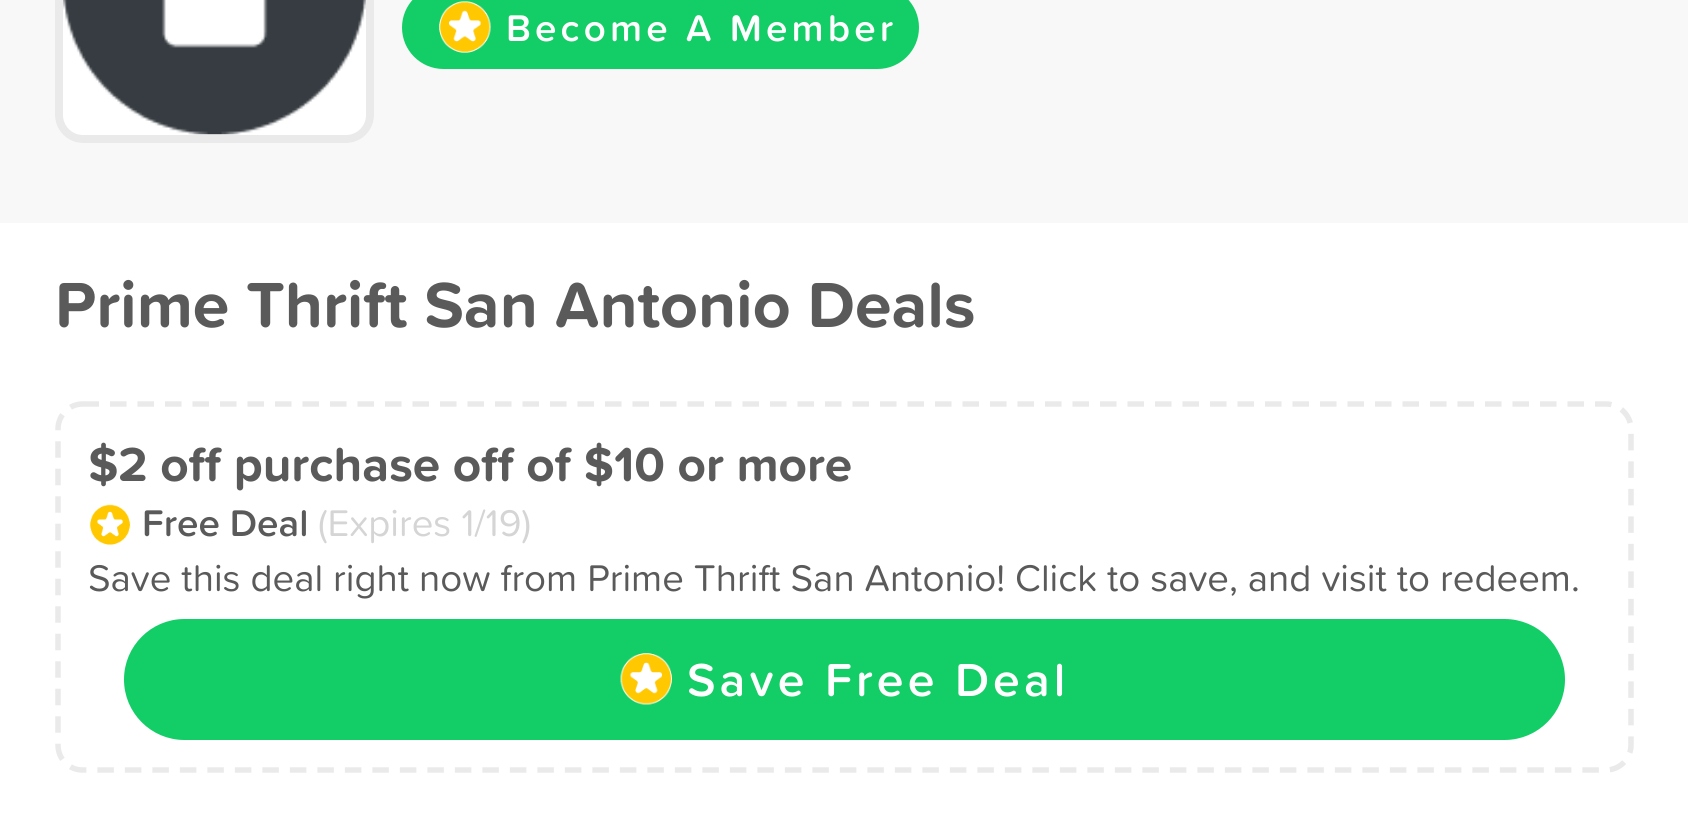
import math
import cairo

surface = cairo.ImageSurface(cairo.FORMAT_RGB24, 1688, 837)
ctx = cairo.Context(surface)
options = cairo.FontOptions()
options.set_hint_metrics(cairo.HINT_METRICS_OFF)
options.set_hint_style(cairo.HINT_STYLE_NONE)
ctx.set_font_options(options)
ctx.set_miter_limit(4)


def set_color(code):
    ctx.set_source_rgb(*(v / 255 for v in bytes.fromhex(code[-6:])))


def draw_text(x, y, s, family, size, color, bold=False, italic=False):
    ctx.select_font_face(family, cairo.FONT_SLANT_ITALIC if italic else cairo.FONT_SLANT_NORMAL, cairo.FONT_WEIGHT_BOLD if bold else cairo.FONT_WEIGHT_NORMAL)
    ctx.set_font_size(size)
    set_color(color)
    ctx.move_to(x, y)
    ctx.show_text(s)


def draw_spaced(x, y, s, letter, word):
    ctx.move_to(x, y)
    for ch in s:
        ctx.show_text(ch)
        ctx.rel_move_to(letter + word * (ch == ' '), 0)


def fill_rect(x, y, w, h, color):
    set_color(color)
    ctx.rectangle(x, y, w, h)
    ctx.fill()


def rounded_rect(x, y, w, h, r):
    ctx.new_sub_path()
    for i, (u, v) in enumerate([(x + w - r, y + h - r), (x + r, y + h - r), (x + r, y + r), (x + w - r, y + r)]):
        ctx.arc(u, v, r, i * math.pi / 2, (i + 1) * math.pi / 2)
    ctx.close_path()


def draw_image(path, x, y, w, h):
    ctx.save()
    ctx.set_source_surface(cairo.ImageSurface.create_from_png(path), x, y)
    ctx.rectangle(x, y, w, h)
    ctx.fill()
    ctx.restore()


set_color("#ffffff")
ctx.paint()
fill_rect(0, 0, 1688, 223, "#f8f8f8")
set_color("#ffffff")
rounded_rect(55, -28, 319, 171, 28)
ctx.fill()
draw_image("assets/img1.png", 63, 0, 303, 135)
rounded_rect(59, -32, 311, 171, 24)
set_color("#eaeaea")
ctx.set_line_width(8)
ctx.stroke()
set_color("#13ce66")
rounded_rect(403.5, -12.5, 514, 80, 40)
ctx.fill_preserve()
ctx.set_line_width(3)
ctx.stroke()
draw_image("assets/img2.png", 439, 1, 52, 52)
ctx.select_font_face("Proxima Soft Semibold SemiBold")
ctx.set_font_size(38.5)
set_color("#ffffff")
draw_spaced(506, 41, "Become A Member", 4.1, 0)
draw_text(55, 327, "Prime Thrift San Antonio Deals", "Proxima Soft", 66, "#5a5a5a", bold=True)
ctx.new_path()
ctx.move_to(82.5, 404)
ctx.line_to(1606, 404)
ctx.curve_to(1619.5, 404, 1631, 415.5, 1631, 429)
ctx.line_to(1631, 745)
ctx.curve_to(1631, 759, 1619.5, 770, 1606, 770)
ctx.line_to(82.5, 770)
ctx.curve_to(69, 770, 58, 759, 58, 745)
ctx.line_to(58, 429)
ctx.curve_to(58, 415.5, 69, 404, 82.5, 404)
ctx.close_path()
set_color("#eaeaea")
ctx.set_line_width(5.5)
ctx.set_dash([16.5, 11])
ctx.stroke()
draw_text(88, 481, "$2 off purchase off of $10 or more", "Proxima Soft", 49.5, "#5a5a5a", bold=True)
draw_image("assets/img3.png", 89, 504, 42, 42)
draw_text(142, 536, "Free Deal", "Proxima Soft Semibold SemiBold", 38.5, "#5a5a5a")
draw_text(318, 536, "(Expires 1/19)", "Proxima Soft", 38.5, "#d5d5d5")
draw_text(88, 591, "Save this deal right now from Prime Thrift San Antonio! Click to save, and visit to redeem.", "Proxima Soft", 38.5, "#5a5a5a")
set_color("#13ce66")
rounded_rect(125.5, 620.5, 1438, 118, 59)
ctx.fill_preserve()
ctx.set_line_width(3)
ctx.set_dash([])
ctx.stroke()
draw_image("assets/img4.png", 620, 653, 52, 52)
ctx.select_font_face("Proxima Soft Semibold SemiBold")
ctx.set_font_size(48)
set_color("#ffffff")
draw_spaced(687, 696, "Save Free Deal", 4.1, 0)
surface.write_to_png("output.png")
